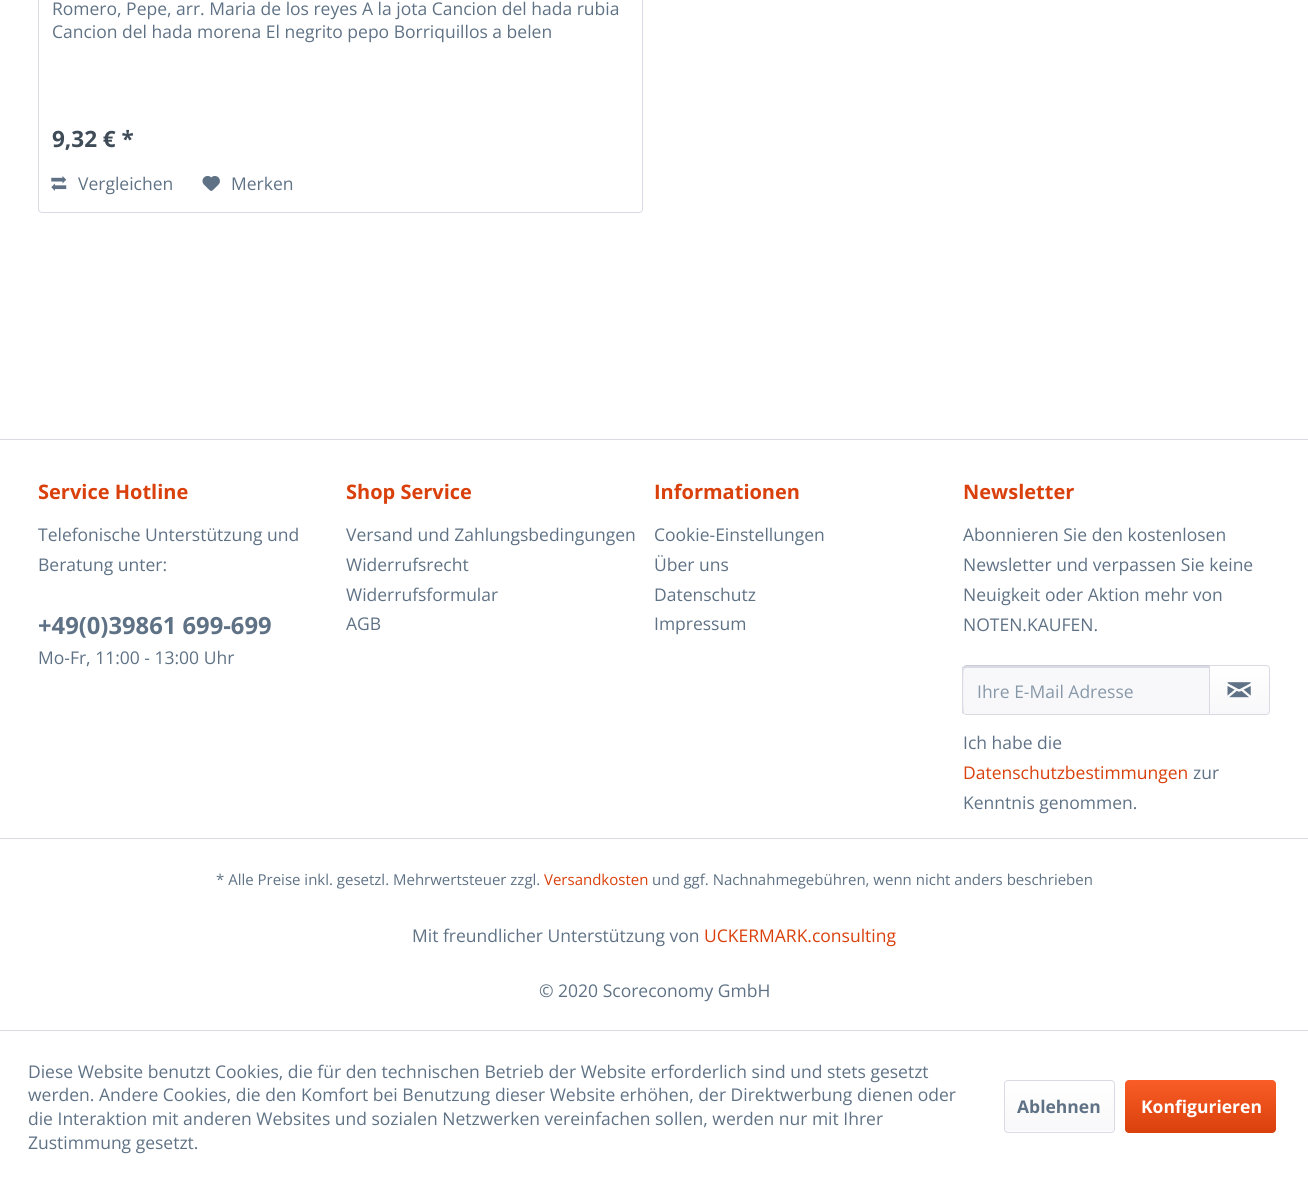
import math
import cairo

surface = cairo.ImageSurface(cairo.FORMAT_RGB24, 1308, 1181)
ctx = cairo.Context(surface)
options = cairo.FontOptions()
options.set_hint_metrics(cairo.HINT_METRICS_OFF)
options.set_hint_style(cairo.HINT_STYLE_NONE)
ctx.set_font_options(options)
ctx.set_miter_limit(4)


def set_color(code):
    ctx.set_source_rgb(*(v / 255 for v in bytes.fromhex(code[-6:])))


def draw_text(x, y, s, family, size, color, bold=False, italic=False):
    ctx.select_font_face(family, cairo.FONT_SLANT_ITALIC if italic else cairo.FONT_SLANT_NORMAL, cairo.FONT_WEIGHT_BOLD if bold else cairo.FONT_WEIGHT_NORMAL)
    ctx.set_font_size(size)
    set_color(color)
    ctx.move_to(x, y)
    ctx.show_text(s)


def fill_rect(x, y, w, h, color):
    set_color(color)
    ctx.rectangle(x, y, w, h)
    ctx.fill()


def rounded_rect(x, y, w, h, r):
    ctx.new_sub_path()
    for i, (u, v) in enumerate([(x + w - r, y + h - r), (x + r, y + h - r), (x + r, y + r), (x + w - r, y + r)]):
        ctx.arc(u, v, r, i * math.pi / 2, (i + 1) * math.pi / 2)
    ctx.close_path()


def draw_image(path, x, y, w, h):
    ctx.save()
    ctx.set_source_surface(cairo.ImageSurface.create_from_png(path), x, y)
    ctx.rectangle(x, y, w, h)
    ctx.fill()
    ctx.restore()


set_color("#ffffff")
ctx.paint()
rounded_rect(38.5, -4.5, 604, 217, 3.5)
set_color("#dadae5")
ctx.set_line_width(1)
ctx.stroke()
draw_text(52, 15, "Romero, Pepe, arr. Maria de los reyes A la jota Cancion del hada rubia", "Open Sans", 17.5, "#5f7285")
draw_text(52, 38, "Cancion del hada morena El negrito pepo Borriquillos a belen", "Open Sans", 17.5, "#5f7285")
draw_text(52, 147, "9,32 € *", "Open Sans", 22.5, "#3f4c58", bold=True)
draw_image("assets/img1.png", 51, 176, 16, 15)
draw_text(78, 190, "Vergleichen", "Open Sans", 17.5, "#5f7285")
draw_image("assets/img2.png", 202, 175, 18, 16)
draw_text(231, 190, "Merken", "Open Sans", 17.5, "#5f7285")
fill_rect(0, 439, 1308, 1, "#dadae5")
fill_rect(0, 838, 1308, 1, "#dadae5")
draw_text(38, 499, "Service Hotline", "Open Sans", 20, "#d9400b", bold=True)
draw_text(38, 541, "Telefonische Unterstützung und", "Open Sans", 17.5, "#5f7285")
draw_text(38, 571, "Beratung unter:", "Open Sans", 17.5, "#5f7285")
draw_text(38, 634, "+49(0)39861 699-699", "Open Sans", 23.75, "#5f7285", bold=True)
draw_text(38, 664, "Mo-Fr, 11:00 - 13:00 Uhr", "Open Sans", 17.5, "#5f7285")
draw_text(346, 499, "Shop Service", "Open Sans", 20, "#d9400b", bold=True)
draw_text(346, 541, "Versand und Zahlungsbedingungen", "Open Sans", 17.5, "#5f7285")
draw_text(346, 571, "Widerrufsrecht", "Open Sans", 17.5, "#5f7285")
draw_text(346, 601, "Widerrufsformular", "Open Sans", 17.5, "#5f7285")
draw_text(346, 630, "AGB", "Open Sans", 17.5, "#5f7285")
draw_text(654, 499, "Informationen", "Open Sans", 20, "#d9400b", bold=True)
draw_text(654, 541, "Cookie-Einstellungen", "Open Sans", 17.5, "#5f7285")
draw_text(654, 571, "Über uns", "Open Sans", 17.5, "#5f7285")
draw_text(654, 601, "Datenschutz", "Open Sans", 17.5, "#5f7285")
draw_text(654, 630, "Impressum", "Open Sans", 17.5, "#5f7285")
draw_text(963, 499, "Newsletter", "Open Sans", 20, "#d9400b", bold=True)
draw_text(963, 541, "Abonnieren Sie den kostenlosen", "Open Sans", 17.5, "#5f7285")
draw_text(963, 571, "Newsletter und verpassen Sie keine", "Open Sans", 17.5, "#5f7285")
draw_text(963, 601, "Neuigkeit oder Aktion mehr von", "Open Sans", 17.5, "#5f7285")
draw_text(963, 631, "NOTEN.KAUFEN.", "Open Sans", 17.5, "#5f7285")
set_color("#f8f8fa")
ctx.new_path()
ctx.move_to(966.5, 666)
ctx.line_to(1209, 666)
ctx.line_to(1209, 714)
ctx.line_to(966.5, 714)
ctx.curve_to(965, 714, 964, 713, 964, 711.5)
ctx.line_to(964, 668.5)
ctx.curve_to(964, 667, 965, 666, 966.5, 666)
ctx.close_path()
ctx.fill()
set_color("#dadae5")
ctx.new_path()
ctx.move_to(966, 668)
ctx.line_to(1209, 668)
ctx.line_to(1209, 666)
ctx.line_to(966, 666)
ctx.curve_to(964, 666, 964, 668, 964, 670)
ctx.curve_to(964, 669, 965, 668, 966, 668)
ctx.close_path()
ctx.fill()
set_color("#cbcbdb")
ctx.new_path()
ctx.move_to(966, 665)
ctx.line_to(964, 666)
ctx.line_to(964, 667)
ctx.line_to(966, 666)
ctx.line_to(1209, 666)
ctx.line_to(1210, 665)
ctx.close_path()
ctx.fill()
set_color("#dadae5")
ctx.new_path()
ctx.move_to(1210, 715)
ctx.line_to(1209, 714)
ctx.line_to(966, 714)
ctx.line_to(964, 713)
ctx.line_to(964, 714)
ctx.line_to(966, 715)
ctx.close_path()
ctx.fill()
ctx.new_path()
ctx.move_to(962, 667)
ctx.line_to(964, 666)
ctx.line_to(964, 667)
ctx.curve_to(963, 669, 963, 711, 964, 713)
ctx.line_to(964, 714)
ctx.line_to(962, 713)
ctx.close_path()
ctx.fill()
draw_text(977, 698, "Ihre E-Mail Adresse", "Open Sans", 17.5, "#8798a9")
gradient = cairo.LinearGradient(1239, 666, 1239, 714)
gradient.add_color_stop_rgba(0, 1, 1, 1, 1)
gradient.add_color_stop_rgba(1, 0.973, 0.973, 0.98, 1)
ctx.set_source(gradient)
ctx.new_path()
ctx.move_to(1210, 666)
ctx.line_to(1266.5, 666)
ctx.curve_to(1268, 666, 1269, 667, 1269, 668.5)
ctx.line_to(1269, 711.5)
ctx.curve_to(1269, 713, 1268, 714, 1266.5, 714)
ctx.line_to(1210, 714)
ctx.close_path()
ctx.fill()
ctx.new_path()
ctx.move_to(1209.5, 665.5)
ctx.line_to(1266, 665.5)
ctx.curve_to(1268, 665.5, 1269.5, 667, 1269.5, 669)
ctx.line_to(1269.5, 711)
ctx.curve_to(1269.5, 713, 1268, 714.5, 1266, 714.5)
ctx.line_to(1209.5, 714.5)
ctx.close_path()
set_color("#dadae5")
ctx.stroke()
draw_image("assets/img3.png", 1227, 682, 24, 16)
draw_text(963, 749, "Ich habe die", "Open Sans", 17.5, "#5f7285")
draw_text(963, 779, "Datenschutzbestimmungen", "Open Sans", 17.5, "#d9400b")
draw_text(1193, 779, "zur", "Open Sans", 17.5, "#5f7285")
draw_text(963, 809, "Kenntnis genommen.", "Open Sans", 17.5, "#5f7285")
draw_text(216, 885, "* Alle Preise inkl. gesetzl. Mehrwertsteuer zzgl.", "Open Sans", 15, "#5f7285")
draw_text(544, 885, "Versandkosten", "Open Sans", 15, "#d9400b")
draw_text(652, 885, "und ggf. Nachnahmegebühren, wenn nicht anders beschrieben", "Open Sans", 15, "#5f7285")
draw_text(412, 942, "Mit freundlicher Unterstützung von", "Open Sans", 17.5, "#5f7285")
draw_text(704, 942, "UCKERMARK.consulting", "Open Sans", 17.5, "#d9400b")
draw_text(539, 997, "© 2020 Scoreconomy GmbH", "Open Sans", 17.5, "#5f7285")
fill_rect(0, 1030, 1308, 1, "#dadae5")
draw_text(28, 1078, "Diese Website benutzt Cookies, die für den technischen Betrieb der Website erforderlich sind und stets gesetzt", "Open Sans", 17.5, "#5f7285")
draw_text(28, 1101, "werden. Andere Cookies, die den Komfort bei Benutzung dieser Website erhöhen, der Direktwerbung dienen oder", "Open Sans", 17.5, "#5f7285")
draw_text(28, 1125, "die Interaktion mit anderen Websites und sozialen Netzwerken vereinfachen sollen, werden nur mit Ihrer", "Open Sans", 17.5, "#5f7285")
draw_text(28, 1149, "Zustimmung gesetzt.", "Open Sans", 17.5, "#5f7285")
gradient = cairo.LinearGradient(1059, 1081, 1059, 1131)
gradient.add_color_stop_rgba(0, 1, 1, 1, 1)
gradient.add_color_stop_rgba(1, 0.973, 0.973, 0.98, 1)
ctx.set_source(gradient)
rounded_rect(1005, 1081, 109, 50, 2.5)
ctx.fill()
rounded_rect(1004.5, 1080.5, 110, 52, 3.5)
set_color("#dadae5")
ctx.stroke()
draw_text(1017, 1113, "Ablehnen", "Open Sans", 17.5, "#5f7285", bold=True)
gradient = cairo.LinearGradient(1201, 1080, 1201, 1133)
gradient.add_color_stop_rgba(0, 0.98, 0.365, 0.153, 1)
gradient.add_color_stop_rgba(1, 0.851, 0.251, 0.043, 1)
ctx.set_source(gradient)
rounded_rect(1125, 1080, 151, 53, 4)
ctx.fill()
draw_text(1141, 1113, "Konfigurieren", "Open Sans", 17.5, "#ffffff", bold=True)
surface.write_to_png("output.png")
